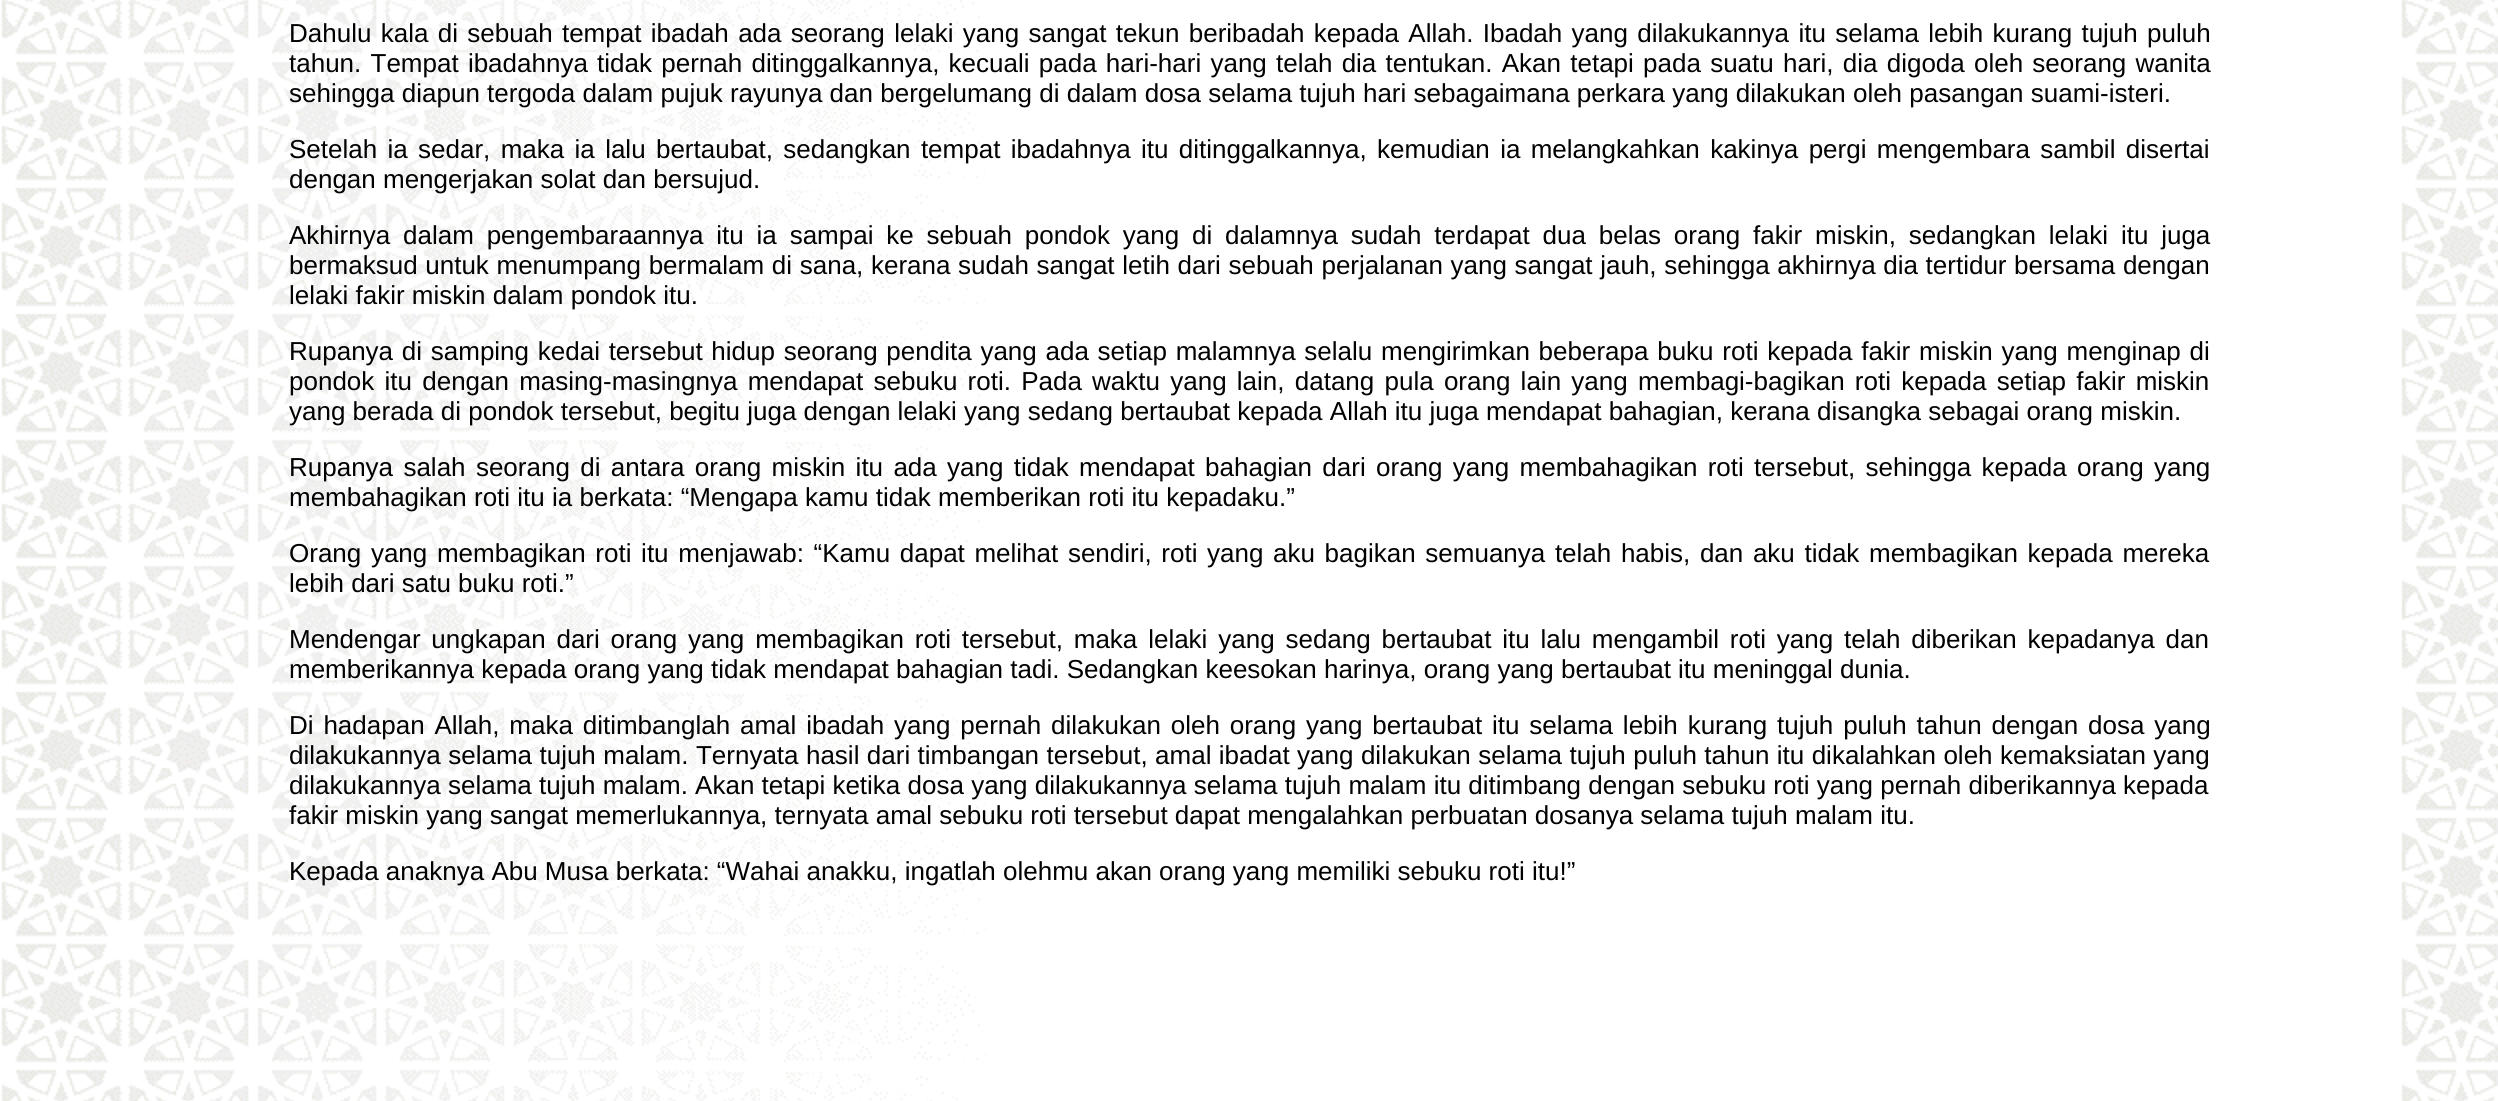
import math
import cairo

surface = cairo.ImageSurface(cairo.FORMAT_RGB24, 2498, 1101)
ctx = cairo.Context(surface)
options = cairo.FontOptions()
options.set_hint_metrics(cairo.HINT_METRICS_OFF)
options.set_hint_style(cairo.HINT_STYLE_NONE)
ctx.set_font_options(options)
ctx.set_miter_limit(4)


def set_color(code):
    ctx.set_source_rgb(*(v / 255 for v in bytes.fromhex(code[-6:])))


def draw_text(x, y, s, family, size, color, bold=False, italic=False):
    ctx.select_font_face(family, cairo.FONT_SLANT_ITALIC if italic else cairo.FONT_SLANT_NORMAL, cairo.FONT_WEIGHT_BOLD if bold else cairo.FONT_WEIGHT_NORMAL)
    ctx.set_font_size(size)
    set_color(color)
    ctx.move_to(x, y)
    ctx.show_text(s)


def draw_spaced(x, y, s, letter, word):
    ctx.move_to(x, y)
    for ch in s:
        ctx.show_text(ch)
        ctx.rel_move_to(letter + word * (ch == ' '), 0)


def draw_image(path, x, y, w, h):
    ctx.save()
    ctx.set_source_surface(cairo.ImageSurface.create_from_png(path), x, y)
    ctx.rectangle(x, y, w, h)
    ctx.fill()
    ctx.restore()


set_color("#ffffff")
ctx.paint()
draw_image("assets/img1.png", 1, 0, 2497, 1101)
ctx.select_font_face("Liberation Sans")
ctx.set_font_size(26)
set_color("#000000")
draw_spaced(289, 42, "Dahulu kala di sebuah tempat ibadah ada seorang lelaki yang sangat tekun beribadah kepada Allah. Ibadah yang dilakukannya itu selama lebih kurang tujuh puluh", 0, 2.1)
draw_spaced(289, 72, "tahun. Tempat ibadahnya tidak pernah ditinggalkannya, kecuali pada hari-hari yang telah dia tentukan. Akan tetapi pada suatu hari, dia digoda oleh seorang wanita", 0, 2)
draw_text(289, 102, "sehingga diapun tergoda dalam pujuk rayunya dan bergelumang di dalam dosa selama tujuh hari sebagaimana perkara yang dilakukan oleh pasangan suami-isteri.", "Liberation Sans", 26, "#000000")
draw_spaced(289, 158, "Setelah ia sedar, maka ia lalu bertaubat, sedangkan tempat ibadahnya itu ditinggalkannya, kemudian ia melangkahkan kakinya pergi mengembara sambil disertai", 0, 3.1)
draw_text(289, 188, "dengan mengerjakan solat dan bersujud.", "Liberation Sans", 26, "#000000")
draw_spaced(289, 244, "Akhirnya dalam pengembaraannya itu ia sampai ke sebuah pondok yang di dalamnya sudah terdapat dua belas orang fakir miskin, sedangkan lelaki itu juga", 0, 5.6)
draw_spaced(289, 274, "bermaksud untuk menumpang bermalam di sana, kerana sudah sangat letih dari sebuah perjalanan yang sangat jauh, sehingga akhirnya dia tertidur bersama dengan", 0, 0.4)
draw_text(289, 304, "lelaki fakir miskin dalam pondok itu.", "Liberation Sans", 26, "#000000")
draw_spaced(289, 360, "Rupanya di samping kedai tersebut hidup seorang pendita yang ada setiap malamnya selalu mengirimkan beberapa buku roti kepada fakir miskin yang menginap di", 0, 1.5)
draw_spaced(289, 390, "pondok itu dengan masing-masingnya mendapat sebuku roti. Pada waktu yang lain, datang pula orang lain yang membagi-bagikan roti kepada setiap fakir miskin", 0, 3)
draw_text(289, 420, "yang berada di pondok tersebut, begitu juga dengan lelaki yang sedang bertaubat kepada Allah itu juga mendapat bahagian, kerana disangka sebagai orang miskin.", "Liberation Sans", 26, "#000000")
draw_spaced(289, 476, "Rupanya salah seorang di antara orang miskin itu ada yang tidak mendapat bahagian dari orang yang membahagikan roti tersebut, sehingga kepada orang yang", 0, 3.1)
draw_text(289, 506, "membahagikan roti itu ia berkata: “Mengapa kamu tidak memberikan roti itu kepadaku.”", "Liberation Sans", 26, "#000000")
draw_spaced(289, 562, "Orang yang membagikan roti itu menjawab: “Kamu dapat melihat sendiri, roti yang aku bagikan semuanya telah habis, dan aku tidak membagikan kepada mereka", 0, 2.4)
draw_text(289, 592, "lebih dari satu buku roti.”", "Liberation Sans", 26, "#000000")
draw_spaced(289, 648, "Mendengar ungkapan dari orang yang membagikan roti tersebut, maka lelaki yang sedang bertaubat itu lalu mengambil roti yang telah diberikan kepadanya dan", 0, 3.6)
draw_text(289, 678, "memberikannya kepada orang yang tidak mendapat bahagian tadi. Sedangkan keesokan harinya, orang yang bertaubat itu meninggal dunia.", "Liberation Sans", 26, "#000000")
draw_spaced(289, 734, "Di hadapan Allah, maka ditimbanglah amal ibadah yang pernah dilakukan oleh orang yang bertaubat itu selama lebih kurang tujuh puluh tahun dengan dosa yang", 0, 2.6)
draw_spaced(289, 764, "dilakukannya selama tujuh malam. Ternyata hasil dari timbangan tersebut, amal ibadat yang dilakukan selama tujuh puluh tahun itu dikalahkan oleh kemaksiatan yang", 0, 0.2)
draw_text(289, 794, "dilakukannya selama tujuh malam. Akan tetapi ketika dosa yang dilakukannya selama tujuh malam itu ditimbang dengan sebuku roti yang pernah diberikannya kepada", "Liberation Sans", 26, "#000000")
draw_text(289, 824, "fakir miskin yang sangat memerlukannya, ternyata amal sebuku roti tersebut dapat mengalahkan perbuatan dosanya selama tujuh malam itu.", "Liberation Sans", 26, "#000000")
draw_text(289, 880, "Kepada anaknya Abu Musa berkata: “Wahai anakku, ingatlah olehmu akan orang yang memiliki sebuku roti itu!”", "Liberation Sans", 26, "#000000")
surface.write_to_png("output.png")
